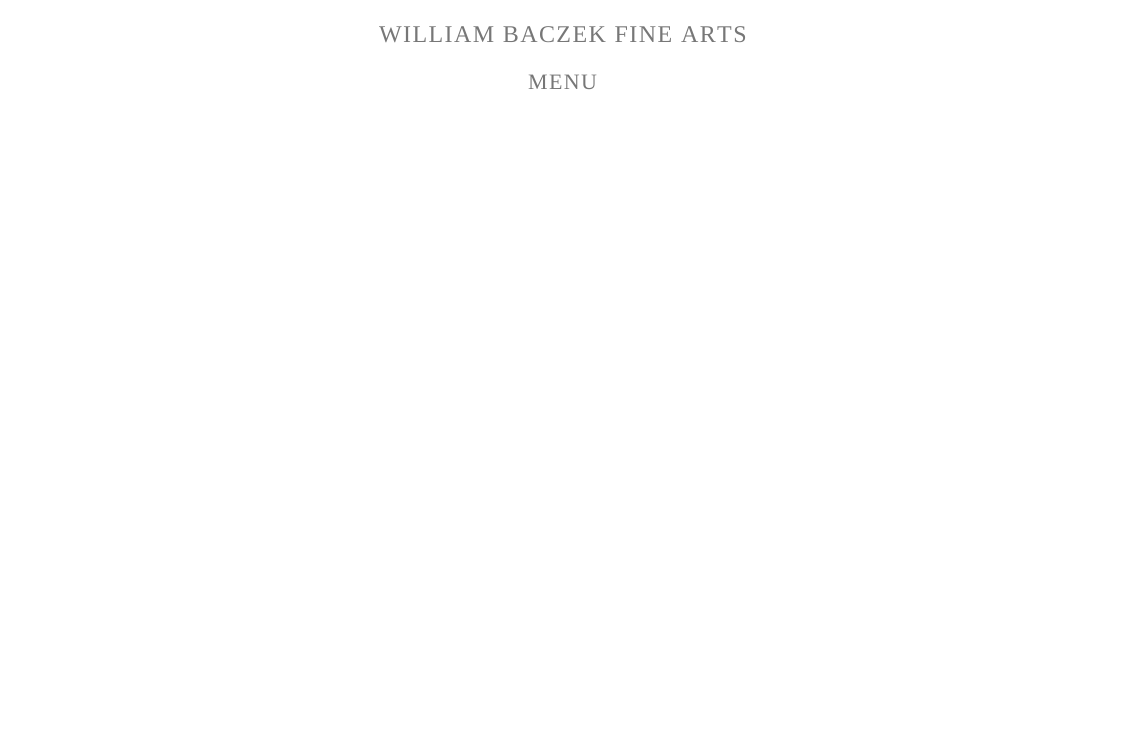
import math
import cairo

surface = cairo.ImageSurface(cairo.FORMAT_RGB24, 1126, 740)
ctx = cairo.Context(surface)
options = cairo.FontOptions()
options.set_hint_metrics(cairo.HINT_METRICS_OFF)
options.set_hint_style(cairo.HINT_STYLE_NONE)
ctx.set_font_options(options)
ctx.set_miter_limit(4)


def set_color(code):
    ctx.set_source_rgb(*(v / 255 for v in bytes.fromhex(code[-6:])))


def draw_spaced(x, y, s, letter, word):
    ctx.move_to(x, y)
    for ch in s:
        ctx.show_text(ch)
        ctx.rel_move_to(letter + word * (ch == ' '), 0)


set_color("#ffffff")
ctx.paint()
ctx.select_font_face("Liberation Serif")
ctx.set_font_size(24)
set_color("#777777")
draw_spaced(379, 42, "WILLIAM BACZEK FINE ARTS", 1.4, 0)
ctx.set_font_size(22)
draw_spaced(528, 89, "MENU", 1.4, 0)
surface.write_to_png("output.png")
